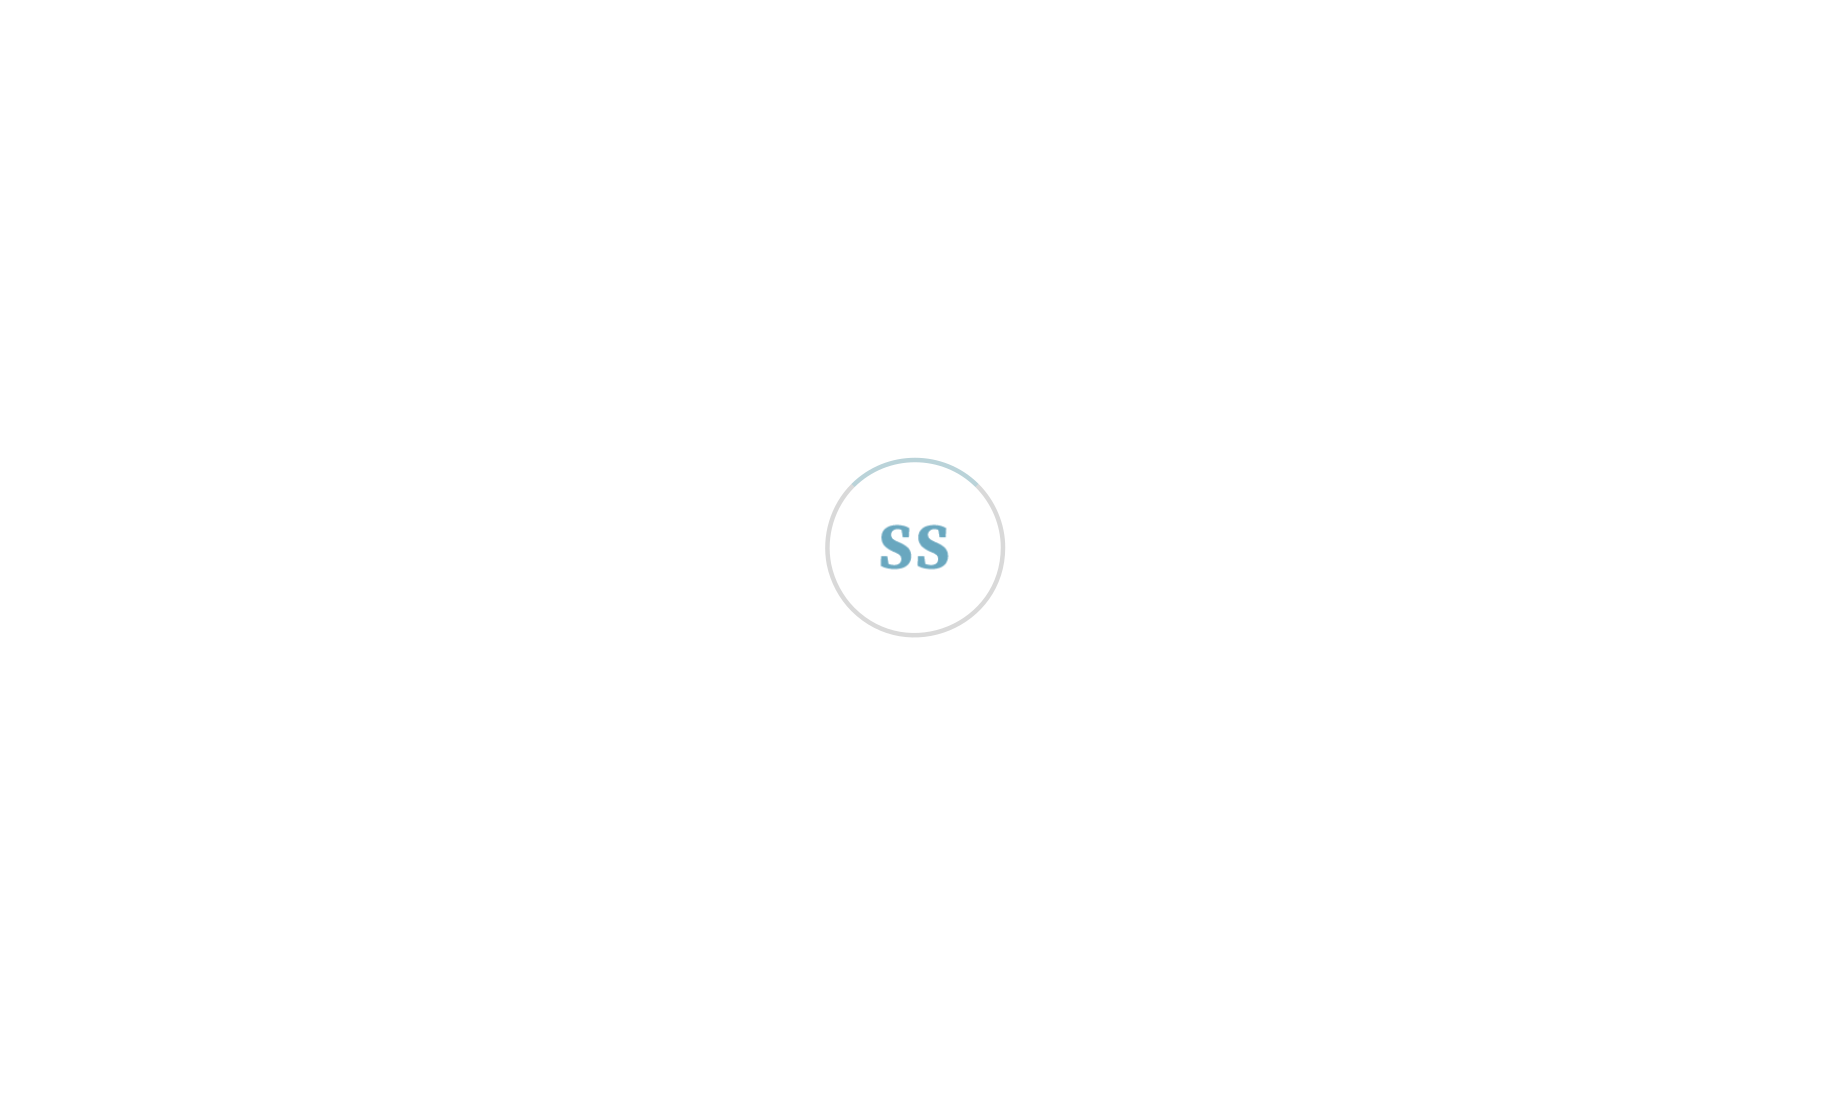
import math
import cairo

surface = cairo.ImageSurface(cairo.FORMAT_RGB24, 1828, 1094)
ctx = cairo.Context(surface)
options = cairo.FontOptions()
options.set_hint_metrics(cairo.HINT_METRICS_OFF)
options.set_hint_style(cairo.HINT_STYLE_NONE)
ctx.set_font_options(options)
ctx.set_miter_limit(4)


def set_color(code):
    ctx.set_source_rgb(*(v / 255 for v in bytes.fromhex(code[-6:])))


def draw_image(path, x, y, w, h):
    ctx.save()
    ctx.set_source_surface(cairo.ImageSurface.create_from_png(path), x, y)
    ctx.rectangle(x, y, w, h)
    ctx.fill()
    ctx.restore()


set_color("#ffffff")
ctx.paint()
ctx.new_path()
ctx.move_to(853, 485.5)
ctx.curve_to(887, 451.5, 943, 451.5, 977, 485.5)
set_color("#bad3d9")
ctx.set_line_width(4.5)
ctx.stroke()
ctx.new_path()
ctx.move_to(977, 485.5)
ctx.curve_to(993.5, 502, 1003, 524.5, 1003, 547.5)
ctx.curve_to(1003, 625.5, 908, 664.5, 853, 609.5)
ctx.curve_to(841, 597.5, 832.5, 581.5, 829, 564.5)
ctx.curve_to(823.5, 536, 832.5, 506, 853, 485.5)
ctx.set_source_rgba(0, 0, 0, 0.15)
ctx.stroke()
draw_image("assets/img1.png", 880, 524, 69, 46)
surface.write_to_png("output.png")
